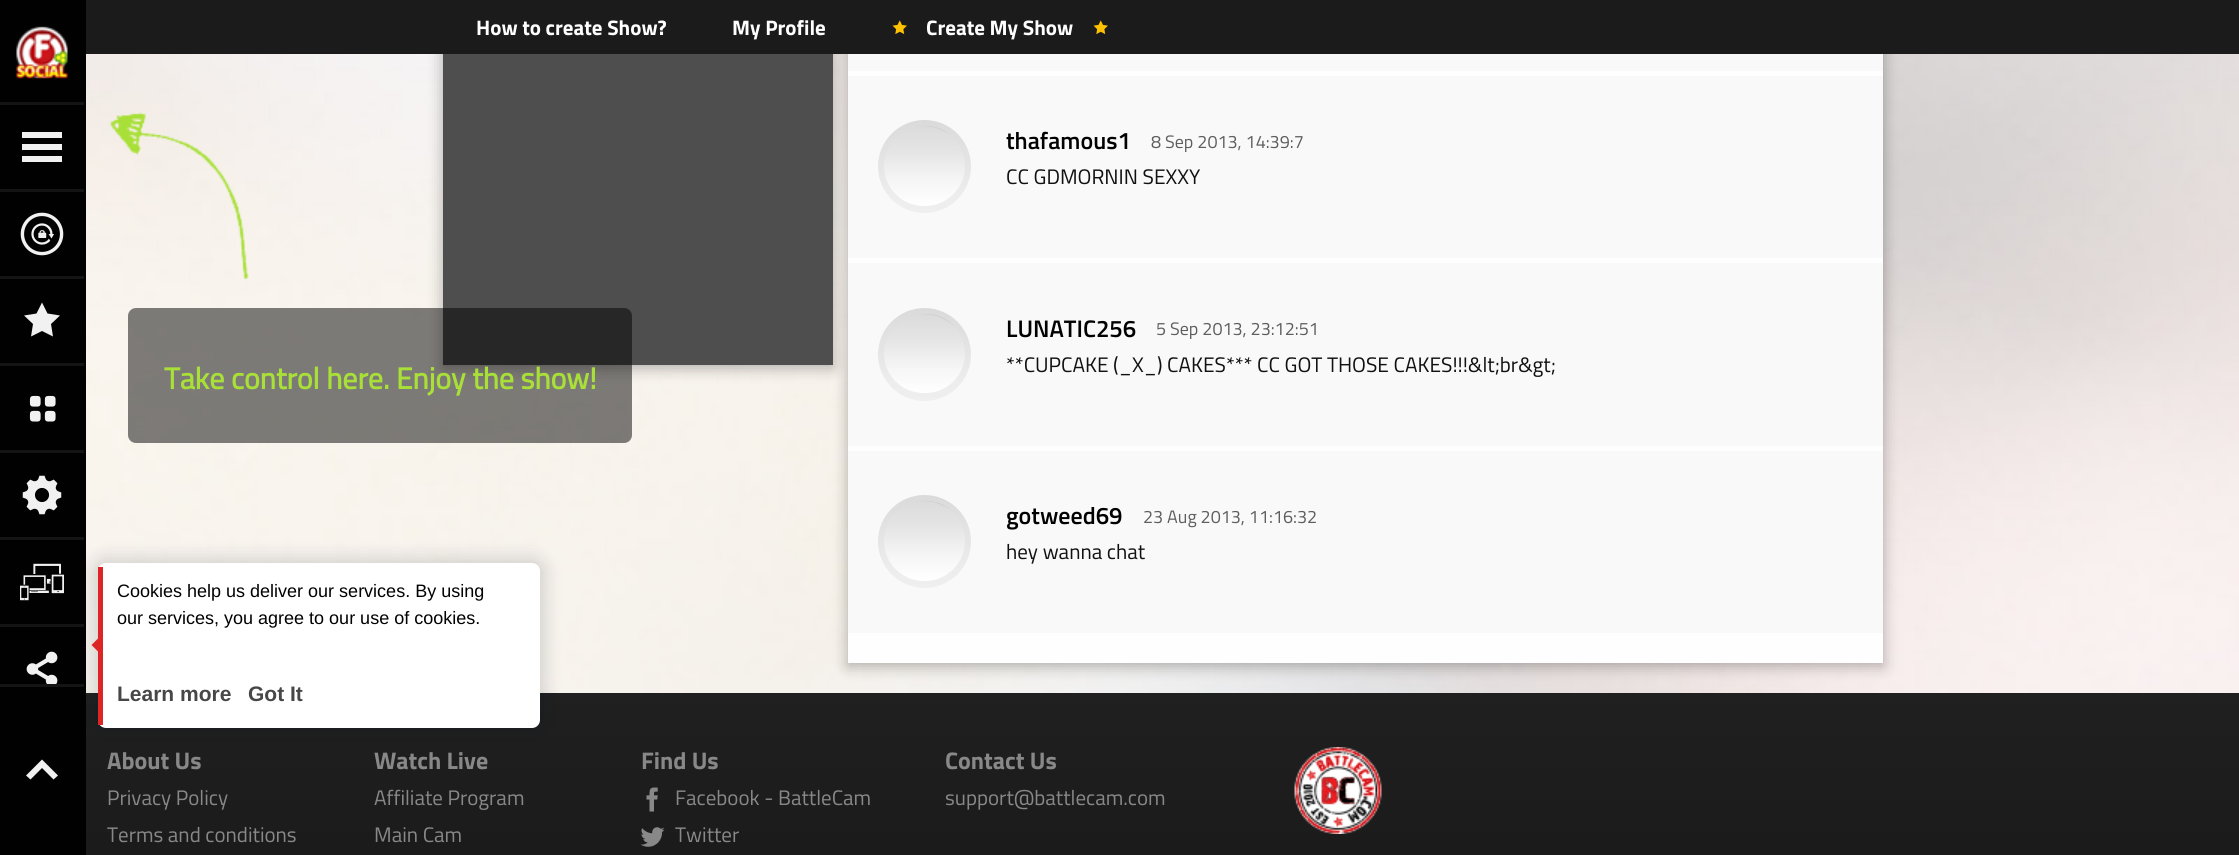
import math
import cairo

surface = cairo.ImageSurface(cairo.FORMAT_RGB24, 2239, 855)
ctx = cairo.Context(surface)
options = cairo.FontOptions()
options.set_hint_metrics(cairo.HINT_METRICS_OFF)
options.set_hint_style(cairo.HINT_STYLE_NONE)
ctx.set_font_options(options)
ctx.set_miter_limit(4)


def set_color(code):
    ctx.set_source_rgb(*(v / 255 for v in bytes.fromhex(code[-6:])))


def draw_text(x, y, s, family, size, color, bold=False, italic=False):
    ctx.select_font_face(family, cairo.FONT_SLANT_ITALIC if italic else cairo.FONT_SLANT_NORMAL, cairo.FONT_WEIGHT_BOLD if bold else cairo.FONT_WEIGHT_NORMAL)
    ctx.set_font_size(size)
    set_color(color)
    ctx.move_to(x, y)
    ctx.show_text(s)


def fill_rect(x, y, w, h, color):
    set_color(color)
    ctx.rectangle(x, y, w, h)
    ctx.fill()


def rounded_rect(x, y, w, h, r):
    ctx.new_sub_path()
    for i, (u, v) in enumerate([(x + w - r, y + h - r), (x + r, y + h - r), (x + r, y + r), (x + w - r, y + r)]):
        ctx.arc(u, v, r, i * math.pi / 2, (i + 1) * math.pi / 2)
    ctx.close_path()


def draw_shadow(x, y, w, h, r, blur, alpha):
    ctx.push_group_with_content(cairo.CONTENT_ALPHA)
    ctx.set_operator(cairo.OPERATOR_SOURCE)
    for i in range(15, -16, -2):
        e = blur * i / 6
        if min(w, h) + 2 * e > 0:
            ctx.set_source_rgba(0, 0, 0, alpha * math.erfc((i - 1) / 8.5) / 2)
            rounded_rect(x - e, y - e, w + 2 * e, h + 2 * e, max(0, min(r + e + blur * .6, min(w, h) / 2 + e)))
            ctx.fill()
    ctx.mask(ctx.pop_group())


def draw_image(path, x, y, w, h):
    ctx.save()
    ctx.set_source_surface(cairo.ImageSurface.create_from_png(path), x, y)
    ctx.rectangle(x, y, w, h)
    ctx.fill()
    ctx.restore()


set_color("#ffffff")
ctx.paint()
draw_image("assets/img1.png", 86, 54, 2153, 639)
gradient = cairo.LinearGradient(1163, 693, 1163, 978)
gradient.add_color_stop_rgba(0, 0.125, 0.125, 0.125, 1)
gradient.add_color_stop_rgba(1, 0.09, 0.09, 0.09, 1)
ctx.set_source(gradient)
ctx.rectangle(86, 693, 2153, 162)
ctx.fill()
set_color("#000d1a")
draw_shadow(93, 558, 452, 174, 12, 9, 0.15)
fill_rect(0, 0, 86, 855, "#010101")
draw_image("assets/img2.png", 16, 26, 52, 53)
fill_rect(0, 102, 84, 3, "#141414")
set_color("#f1f1f1")
ctx.new_path()
ctx.move_to(62, 138)
ctx.line_to(22, 138)
ctx.line_to(22, 132)
ctx.line_to(62, 132)
ctx.close_path()
ctx.move_to(62, 144)
ctx.line_to(22, 144)
ctx.line_to(22, 150)
ctx.line_to(62, 150)
ctx.close_path()
ctx.move_to(62, 156)
ctx.line_to(22, 156)
ctx.line_to(22, 162)
ctx.line_to(62, 162)
ctx.close_path()
ctx.fill()
fill_rect(0, 189, 84, 3, "#141414")
draw_image("assets/img3.png", 20, 212, 44, 44)
fill_rect(0, 276, 84, 3, "#141414")
set_color("#f1f1f1")
ctx.new_path()
ctx.move_to(60, 315.5)
ctx.line_to(47.5, 313.5)
ctx.line_to(42, 302.5)
ctx.line_to(36.5, 313.5)
ctx.line_to(24, 315.5)
ctx.line_to(33, 324)
ctx.line_to(31, 336.5)
ctx.line_to(42, 331)
ctx.line_to(53, 336.5)
ctx.line_to(51, 324)
ctx.close_path()
ctx.fill()
fill_rect(0, 363, 84, 3, "#141414")
draw_image("assets/img4.png", 29, 395, 27, 27)
fill_rect(0, 450, 84, 3, "#141414")
draw_image("assets/img5.png", 22, 475, 40, 40)
fill_rect(0, 537, 84, 3, "#141414")
draw_image("assets/img6.png", 20, 563, 44, 38)
fill_rect(0, 624, 84, 3, "#141414")
draw_image("assets/img7.png", 26, 651, 32, 33)
fill_rect(0, 684, 84, 3, "#141414")
set_color("#f1f1f1")
ctx.new_path()
ctx.move_to(30.5, 779.5)
ctx.line_to(26, 775.5)
ctx.line_to(42, 759.5)
ctx.line_to(58, 775.5)
ctx.line_to(53.5, 779.5)
ctx.line_to(42, 768)
ctx.close_path()
ctx.fill()
set_color("#000000")
draw_shadow(443, -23, 390, 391, 0, 7.5, 0.3)
draw_shadow(848, -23, 1035, 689, 0, 7.5, 0.3)
fill_rect(443, 255, 390, 110, "#4e4e4e")
ctx.set_source_rgba(0, 0, 0, 0.5)
rounded_rect(128, 308, 504, 135, 8)
ctx.fill()
draw_image("assets/img8.png", 109, 112, 140, 167)
draw_text(164, 389, "Take control here. Enjoy the show!", "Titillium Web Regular", 30, "#a8e038", bold=True)
fill_rect(86, 0, 2153, 54, "#1b1b1b")
draw_text(476, 35, "How to create Show?", "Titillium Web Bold", 21, "#fefefe", bold=True)
draw_text(732, 35, "My Profile", "Titillium Web Bold", 21, "#fefefe", bold=True)
draw_image("assets/img9.png", 892, 20, 15, 14)
draw_text(926, 35, "Create My Show", "Titillium Web Bold", 21, "#fefefe", bold=True)
draw_image("assets/img9.png", 1093, 20, 15, 14)
fill_rect(443, 54, 390, 92, "#4e4e4e")
fill_rect(443, 146, 390, 109, "#4e4e4e")
fill_rect(848, 633, 1035, 30, "#fefefe")
fill_rect(848, 54, 1035, 17, "#f9f9f9")
fill_rect(848, 76, 1035, 182, "#f9f9f9")
fill_rect(848, 71, 1035, 5, "#fefefe")
gradient = cairo.LinearGradient(924, 120, 924, 213)
gradient.add_color_stop_rgba(0, 0.855, 0.855, 0.855, 1)
gradient.add_color_stop_rgba(0.8, 0.929, 0.929, 0.929, 1)
gradient.add_color_stop_rgba(1, 0.937, 0.937, 0.937, 1)
ctx.set_source(gradient)
ctx.arc(924.5, 166.5, 46.5, 0, 2 * math.pi)
ctx.fill()
gradient = cairo.LinearGradient(924, 126, 924, 206)
gradient.add_color_stop_rgba(0, 0.847, 0.847, 0.847, 1)
gradient.add_color_stop_rgba(0.02, 0.863, 0.863, 0.863, 1)
gradient.add_color_stop_rgba(0.3, 0.894, 0.894, 0.894, 1)
gradient.add_color_stop_rgba(0.7, 0.965, 0.965, 0.965, 1)
gradient.add_color_stop_rgba(1, 1, 1, 1, 1)
ctx.set_source(gradient)
rounded_rect(884, 126, 81, 80, 40)
ctx.fill()
ctx.set_source_rgba(0, 0, 0, 0.2)
ctx.new_path()
ctx.move_to(924, 126)
ctx.line_to(923.5, 126)
ctx.curve_to(935, 126, 944.5, 130, 951.5, 136)
ctx.curve_to(944.5, 129.5, 935, 126, 925, 126)
ctx.close_path()
ctx.fill()
draw_text(1006, 149, "thafamous1", "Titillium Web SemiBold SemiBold", 24, "#010101")
draw_text(1151, 148, "8 Sep 2013, 14:39:7", "Titillium Web Regular", 18, "#5e5e5e")
draw_text(1006, 184, "CC GDMORNIN SEXXY", "Titillium Web Regular", 21, "#111111")
fill_rect(848, 263, 1035, 183, "#f9f9f9")
fill_rect(848, 258, 1035, 5, "#fefefe")
gradient = cairo.LinearGradient(924, 308, 924, 401)
gradient.add_color_stop_rgba(0, 0.855, 0.855, 0.855, 1)
gradient.add_color_stop_rgba(0.8, 0.929, 0.929, 0.929, 1)
gradient.add_color_stop_rgba(1, 0.937, 0.937, 0.937, 1)
ctx.set_source(gradient)
ctx.new_path()
ctx.arc(924.5, 354.5, 46.5, 0, 2 * math.pi)
ctx.fill()
gradient = cairo.LinearGradient(924, 314, 924, 393)
gradient.add_color_stop_rgba(0, 0.847, 0.847, 0.847, 1)
gradient.add_color_stop_rgba(0.02, 0.863, 0.863, 0.863, 1)
gradient.add_color_stop_rgba(0.3, 0.894, 0.894, 0.894, 1)
gradient.add_color_stop_rgba(0.7, 0.965, 0.965, 0.965, 1)
gradient.add_color_stop_rgba(1, 1, 1, 1, 1)
ctx.set_source(gradient)
rounded_rect(884, 314, 81, 79, 39.5)
ctx.fill()
ctx.set_source_rgba(0, 0, 0, 0.2)
ctx.new_path()
ctx.move_to(923.5, 314)
ctx.curve_to(937.5, 314, 948.5, 320, 956, 328)
ctx.curve_to(948.5, 319.5, 937.5, 314, 925.5, 314)
ctx.close_path()
ctx.fill()
draw_text(1006, 337, "LUNATIC256", "Titillium Web SemiBold SemiBold", 24, "#010101")
draw_text(1156, 335, "5 Sep 2013, 23:12:51", "Titillium Web Regular", 18, "#5e5e5e")
draw_text(1006, 372, "**CUPCAKE (_X_) CAKES*** CC GOT THOSE CAKES!!!&lt;br&gt;", "Titillium Web Regular", 21, "#111111")
fill_rect(848, 451, 1035, 182, "#f9f9f9")
fill_rect(848, 446, 1035, 5, "#fefefe")
gradient = cairo.LinearGradient(924, 495, 924, 588)
gradient.add_color_stop_rgba(0, 0.855, 0.855, 0.855, 1)
gradient.add_color_stop_rgba(0.8, 0.929, 0.929, 0.929, 1)
gradient.add_color_stop_rgba(1, 0.937, 0.937, 0.937, 1)
ctx.set_source(gradient)
ctx.new_path()
ctx.arc(924.5, 541.5, 46.5, 0, 2 * math.pi)
ctx.fill()
gradient = cairo.LinearGradient(924, 501, 924, 581)
gradient.add_color_stop_rgba(0, 0.847, 0.847, 0.847, 1)
gradient.add_color_stop_rgba(0.02, 0.863, 0.863, 0.863, 1)
gradient.add_color_stop_rgba(0.3, 0.894, 0.894, 0.894, 1)
gradient.add_color_stop_rgba(0.7, 0.965, 0.965, 0.965, 1)
gradient.add_color_stop_rgba(1, 1, 1, 1, 1)
ctx.set_source(gradient)
rounded_rect(884, 501, 81, 80, 40)
ctx.fill()
ctx.set_source_rgba(0, 0, 0, 0.2)
ctx.new_path()
ctx.move_to(924, 501)
ctx.line_to(923.5, 501)
ctx.curve_to(935, 501, 944.5, 505, 951.5, 511)
ctx.curve_to(944.5, 504.5, 935, 501, 925, 501)
ctx.close_path()
ctx.fill()
draw_text(1006, 524, "gotweed69", "Titillium Web SemiBold SemiBold", 24, "#010101")
draw_text(1143, 523, "23 Aug 2013, 11:16:32", "Titillium Web Regular", 18, "#5e5e5e")
draw_text(1006, 559, "hey wanna chat", "Titillium Web Regular", 21, "#111111")
set_color("#ffffff")
rounded_rect(98, 563, 442, 165, 8)
ctx.fill()
fill_rect(98, 567, 5, 158, "#de2525")
draw_text(117, 597, "Cookies help us deliver our services. By using", "Liberation Sans", 18, "#010101")
draw_text(117, 624, "our services, you agree to our use of cookies.", "Liberation Sans", 18, "#010101")
set_color("#de2525")
ctx.new_path()
ctx.move_to(102, 634.5)
ctx.line_to(102, 655.5)
ctx.line_to(91.5, 645)
ctx.close_path()
ctx.fill()
draw_text(117, 701, "Learn more", "Liberation Sans", 21, "#474747", bold=True)
draw_text(248, 701, "Got It", "Liberation Sans", 21, "#474747", bold=True)
draw_text(107, 769, "About Us", "Titillium Web Bold", 24, "#888888", bold=True)
draw_text(107, 805, "Privacy Policy", "Titillium Web Regular", 21, "#888888")
draw_text(107, 842, "Terms and conditions", "Titillium Web Regular", 21, "#888888")
draw_text(374, 769, "Watch Live", "Titillium Web Bold", 24, "#888888", bold=True)
draw_text(374, 805, "Affiliate Program", "Titillium Web Regular", 21, "#888888")
draw_text(374, 842, "Main Cam", "Titillium Web Regular", 21, "#888888")
draw_text(641, 769, "Find Us", "Titillium Web Bold", 24, "#888888", bold=True)
draw_image("assets/img10.png", 646, 787, 12, 25)
draw_text(675, 805, "Facebook - BattleCam", "Titillium Web Regular", 21, "#888888")
draw_image("assets/img11.png", 640, 827, 25, 20)
draw_text(675, 842, "Twitter", "Titillium Web Regular", 21, "#888888")
draw_text(945, 769, "Contact Us", "Titillium Web Bold", 24, "#888888", bold=True)
draw_text(945, 805, "support@battlecam.com", "Titillium Web Regular", 21, "#888888")
draw_image("assets/img12.png", 1294, 747, 88, 87)
surface.write_to_png("output.png")
